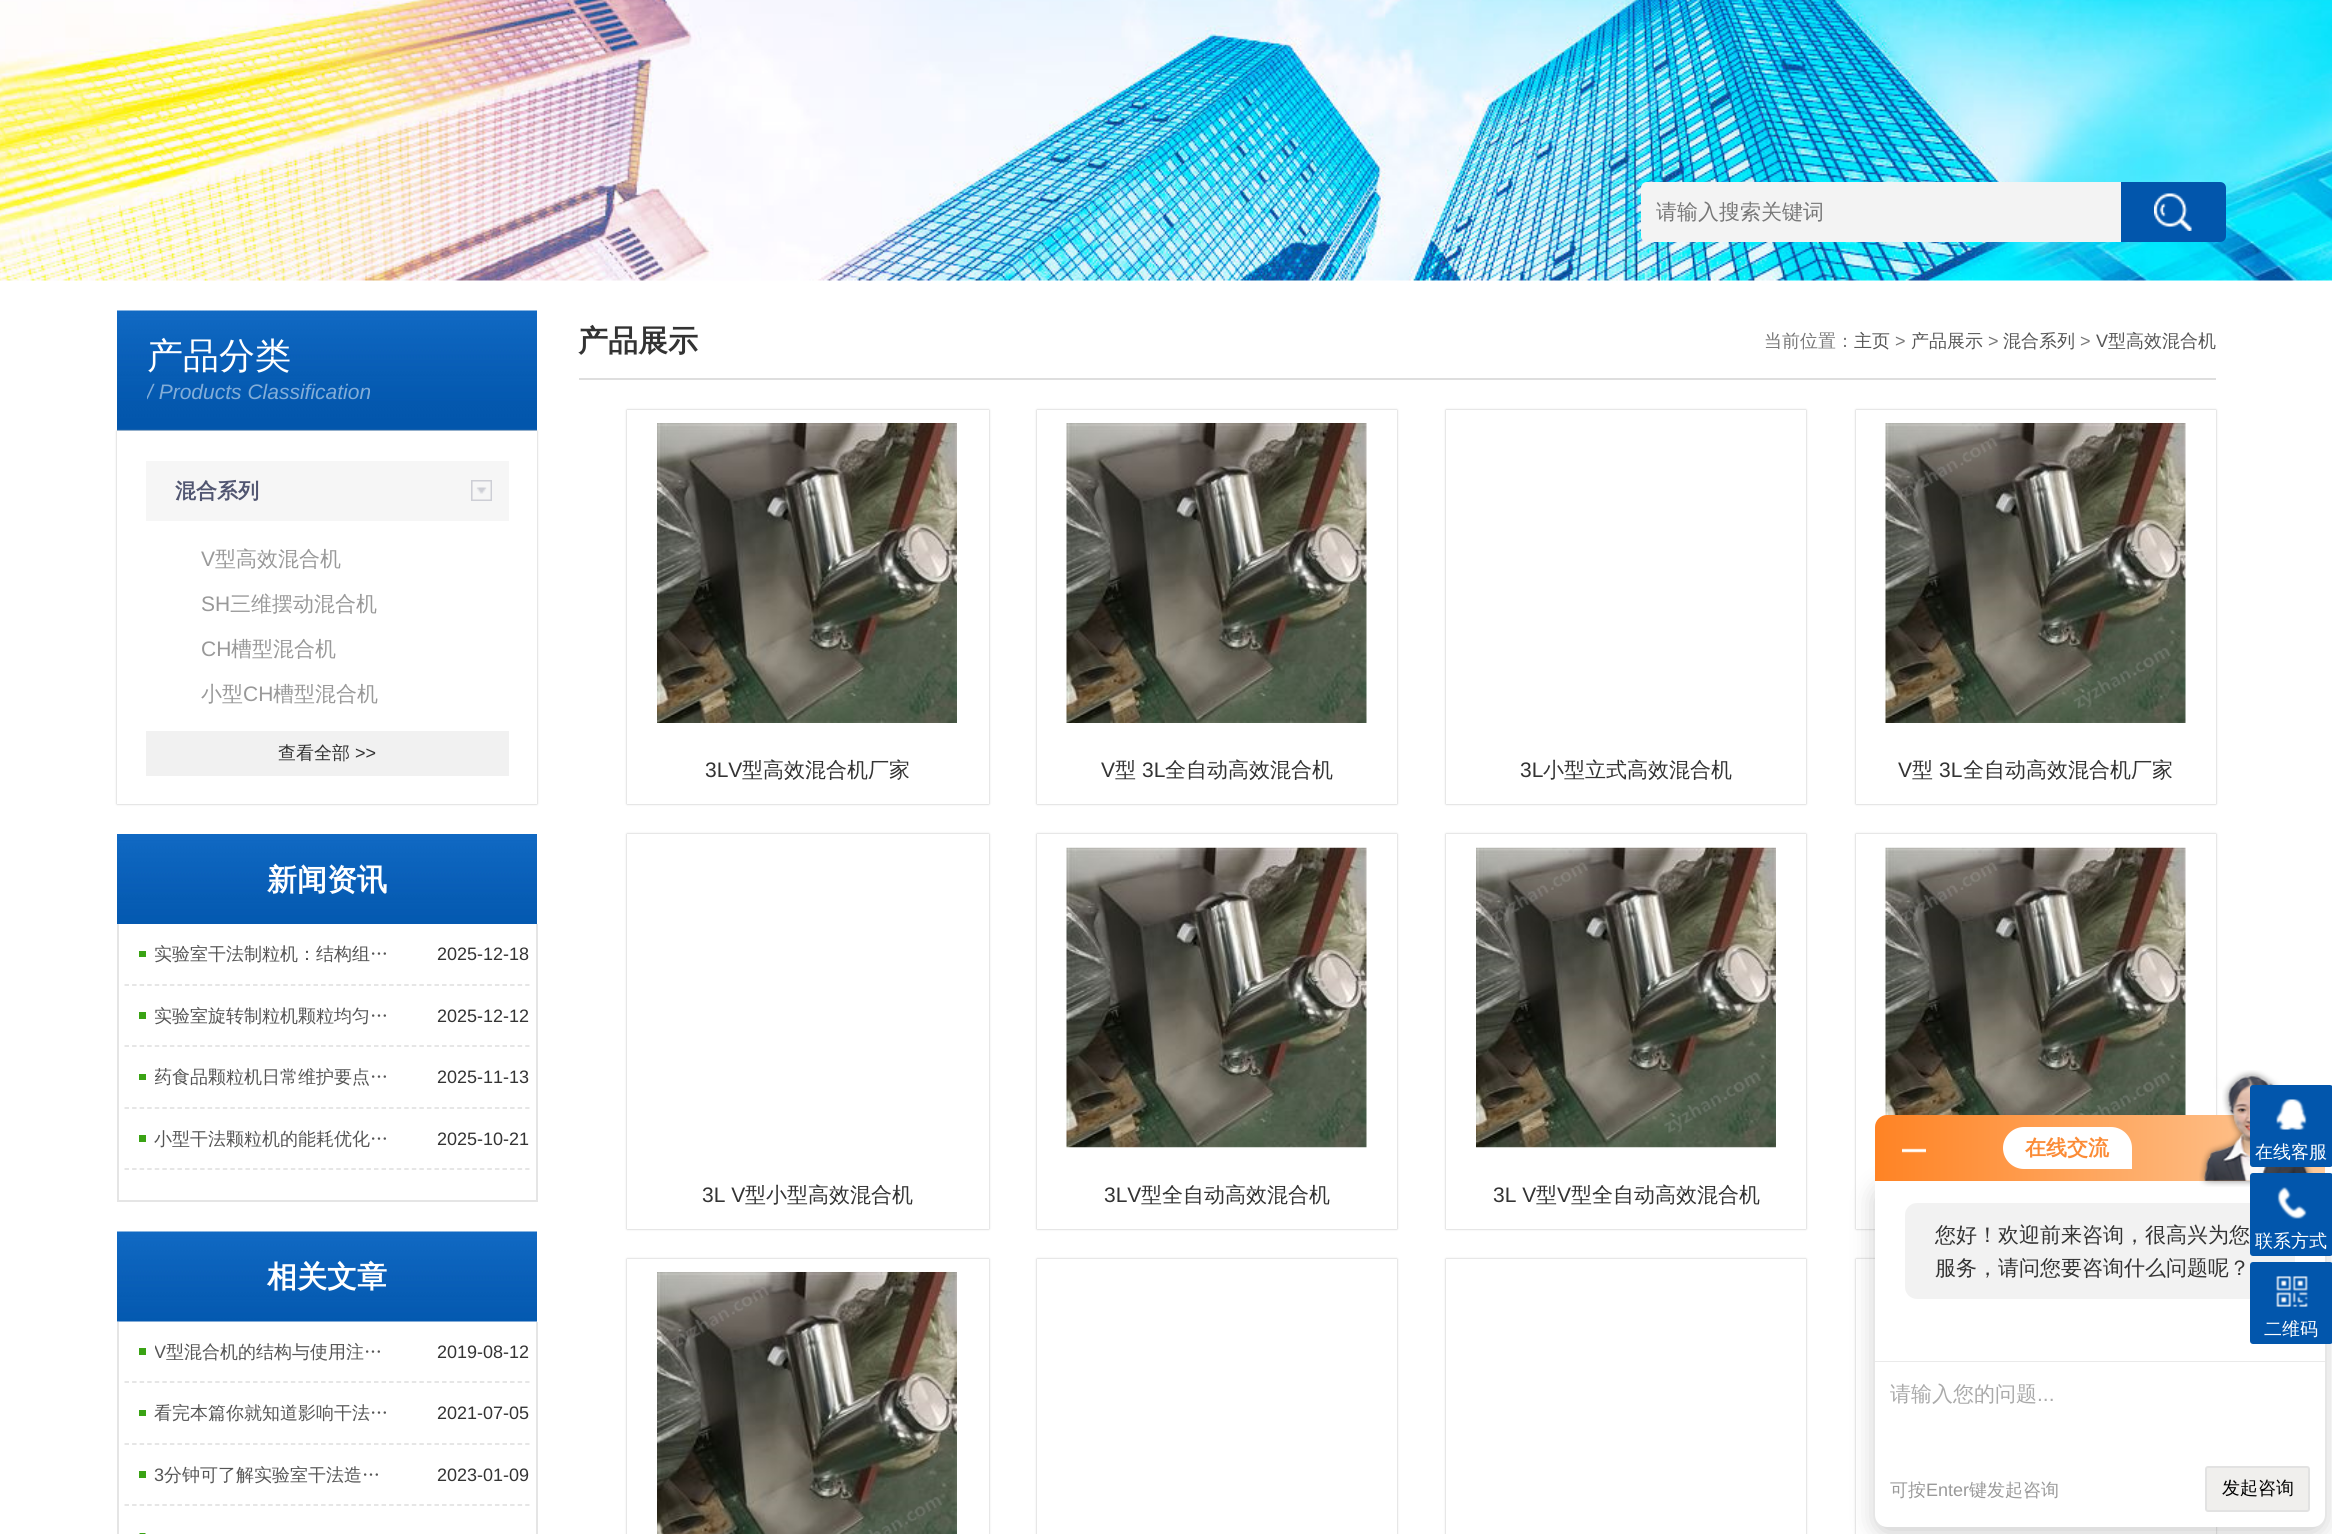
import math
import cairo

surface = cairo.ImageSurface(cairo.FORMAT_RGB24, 2332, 1534)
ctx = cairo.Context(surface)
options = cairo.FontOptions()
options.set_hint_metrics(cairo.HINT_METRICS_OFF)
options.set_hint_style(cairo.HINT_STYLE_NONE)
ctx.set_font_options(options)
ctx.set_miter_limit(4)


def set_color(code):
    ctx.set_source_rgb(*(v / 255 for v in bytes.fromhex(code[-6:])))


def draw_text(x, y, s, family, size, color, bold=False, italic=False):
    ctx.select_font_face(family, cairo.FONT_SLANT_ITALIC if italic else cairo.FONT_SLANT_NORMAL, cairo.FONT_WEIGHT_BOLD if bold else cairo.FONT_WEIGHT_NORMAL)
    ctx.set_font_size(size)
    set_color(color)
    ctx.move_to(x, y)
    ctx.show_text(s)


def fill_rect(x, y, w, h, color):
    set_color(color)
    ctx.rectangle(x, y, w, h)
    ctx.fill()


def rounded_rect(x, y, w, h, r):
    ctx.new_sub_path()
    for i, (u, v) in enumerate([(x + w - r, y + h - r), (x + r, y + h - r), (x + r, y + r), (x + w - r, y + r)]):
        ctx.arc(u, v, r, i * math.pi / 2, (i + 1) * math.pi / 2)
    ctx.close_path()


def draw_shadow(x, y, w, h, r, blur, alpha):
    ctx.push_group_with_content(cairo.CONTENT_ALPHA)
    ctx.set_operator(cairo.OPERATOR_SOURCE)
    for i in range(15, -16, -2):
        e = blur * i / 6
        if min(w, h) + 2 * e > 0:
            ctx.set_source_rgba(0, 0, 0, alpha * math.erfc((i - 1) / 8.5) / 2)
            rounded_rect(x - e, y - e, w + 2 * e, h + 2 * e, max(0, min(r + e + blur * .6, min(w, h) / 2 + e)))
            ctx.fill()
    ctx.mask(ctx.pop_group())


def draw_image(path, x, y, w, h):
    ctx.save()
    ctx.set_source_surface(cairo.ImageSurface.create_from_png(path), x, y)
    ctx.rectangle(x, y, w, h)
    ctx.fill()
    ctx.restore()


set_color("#ffffff")
ctx.paint()
draw_image("assets/img1.png", 0, 0, 2332, 281)
set_color("#f3f3f3")
ctx.new_path()
ctx.move_to(1647, 182)
ctx.line_to(2121, 182)
ctx.line_to(2121, 242)
ctx.line_to(1647, 242)
ctx.curve_to(1643.5, 242, 1641, 239.5, 1641, 236)
ctx.line_to(1641, 188)
ctx.curve_to(1641, 184.5, 1643.5, 182, 1647, 182)
ctx.close_path()
ctx.fill()
draw_text(1656, 219, "请输入搜索关键词", "WenQuanYi Zen Hei Medium", 21, "#777777")
set_color("#0256ac")
ctx.new_path()
ctx.move_to(2121, 182)
ctx.line_to(2220, 182)
ctx.curve_to(2223.5, 182, 2226, 184.5, 2226, 188)
ctx.line_to(2226, 236)
ctx.curve_to(2226, 239.5, 2223.5, 242, 2220, 242)
ctx.line_to(2121, 242)
ctx.close_path()
ctx.fill()
draw_image("assets/img2.png", 2154, 193, 38, 38)
draw_image("assets/img3.png", 117, 310, 420, 121)
draw_text(147, 368, "产品分类", "WenQuanYi Zen Hei Medium", 36, "#ffffff")
ctx.save()
ctx.rectangle(147, 377, 360, 30)
ctx.clip()
draw_text(147, 399, "/ Products Classification", "Liberation Sans", 21, "#82add8", italic=True)
ctx.restore()
ctx.save()
ctx.set_fill_rule(cairo.FILL_RULE_EVEN_ODD)
ctx.new_path()
ctx.move_to(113, 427)
ctx.line_to(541, 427)
ctx.line_to(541, 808)
ctx.line_to(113, 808)
ctx.close_path()
ctx.move_to(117, 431)
ctx.line_to(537, 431)
ctx.line_to(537, 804)
ctx.line_to(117, 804)
ctx.close_path()
ctx.clip()
set_color("#b7b7b7")
draw_shadow(117, 431, 420, 373, 0, 1, 1)
ctx.restore()
fill_rect(146, 461, 363, 60, "#f6f6f6")
draw_text(175, 498, "混合系列", "WenQuanYi Zen Hei", 21, "#515671", bold=True)
draw_image("assets/img4.png", 471, 480, 21, 21)
draw_text(201, 566, "V", "Liberation Sans", 21, "#999999")
draw_text(215, 566, "型高效混合机", "WenQuanYi Zen Hei Medium", 21, "#999999")
draw_text(201, 611, "SH", "Liberation Sans", 21, "#999999")
draw_text(230, 611, "三维摆动混合机", "WenQuanYi Zen Hei Medium", 21, "#999999")
draw_text(201, 656, "CH", "Liberation Sans", 21, "#999999")
draw_text(231, 656, "槽型混合机", "WenQuanYi Zen Hei Medium", 21, "#999999")
draw_text(201, 701, "小型", "WenQuanYi Zen Hei Medium", 21, "#999999")
draw_text(243, 701, "CH", "Liberation Sans", 21, "#999999")
draw_text(273, 701, "槽型混合机", "WenQuanYi Zen Hei Medium", 21, "#999999")
fill_rect(146, 731, 363, 45, "#f1f1f1")
draw_text(278, 759, "查看全部", "WenQuanYi Zen Hei Medium", 18, "#333333")
draw_text(355, 759, ">>", "Liberation Sans", 18, "#333333")
draw_image("assets/img5.png", 117, 834, 420, 90)
draw_text(267, 890, "新闻资讯", "WenQuanYi Zen Hei", 30, "#ffffff", bold=True)
fill_rect(536, 924, 2, 278, "#e5e5e5")
fill_rect(117, 1200, 420, 2, "#e5e5e5")
fill_rect(117, 924, 2, 278, "#e5e5e5")
fill_rect(139, 951, 7, 6, "#3aa314")
ctx.new_path()
ctx.move_to(124.5, 985)
ctx.line_to(529.5, 985)
set_color("#dedede")
ctx.set_line_width(1.5)
ctx.set_dash([4.5, 3.06])
ctx.stroke()
draw_text(154, 960, "实验室干法制粒机：结构组…", "WenQuanYi Zen Hei Medium", 18, "#555555")
draw_text(437, 960, "2025-12-18", "Liberation Sans", 18, "#333333")
fill_rect(139, 1012, 7, 7, "#3aa314")
ctx.new_path()
ctx.move_to(124.5, 1046)
ctx.line_to(529.5, 1046)
set_color("#dedede")
ctx.stroke()
draw_text(154, 1022, "实验室旋转制粒机颗粒均匀…", "WenQuanYi Zen Hei Medium", 18, "#555555")
draw_text(437, 1022, "2025-12-12", "Liberation Sans", 18, "#333333")
fill_rect(139, 1074, 7, 6, "#3aa314")
ctx.new_path()
ctx.move_to(124.5, 1108)
ctx.line_to(529.5, 1108)
set_color("#dedede")
ctx.stroke()
ctx.save()
ctx.rectangle(155, 1047, 250, 60)
ctx.clip()
draw_text(154, 1083, "药食品颗粒机日常维护要点…", "WenQuanYi Zen Hei Medium", 18, "#555555")
ctx.restore()
draw_text(437, 1083, "2025-11-13", "Liberation Sans", 18, "#333333")
fill_rect(139, 1135, 7, 7, "#3aa314")
ctx.new_path()
ctx.move_to(124.5, 1169)
ctx.line_to(529.5, 1169)
set_color("#dedede")
ctx.stroke()
draw_text(154, 1145, "小型干法颗粒机的能耗优化…", "WenQuanYi Zen Hei Medium", 18, "#555555")
draw_text(437, 1145, "2025-10-21", "Liberation Sans", 18, "#333333")
draw_image("assets/img6.png", 117, 1231, 420, 91)
draw_text(267, 1287, "相关文章", "WenQuanYi Zen Hei", 30, "#ffffff", bold=True)
fill_rect(536, 1322, 2, 212, "#e5e5e5")
fill_rect(117, 1322, 2, 212, "#e5e5e5")
fill_rect(139, 1348, 7, 7, "#3aa314")
ctx.new_path()
ctx.move_to(124.5, 1382)
ctx.line_to(529.5, 1382)
set_color("#dedede")
ctx.stroke()
ctx.save()
ctx.rectangle(155, 1322, 250, 60)
ctx.clip()
draw_text(154, 1358, "V", "Liberation Sans", 18, "#555555")
ctx.restore()
draw_text(166, 1358, "型混合机的结构与使用注…", "WenQuanYi Zen Hei Medium", 18, "#555555")
draw_text(437, 1358, "2019-08-12", "Liberation Sans", 18, "#333333")
fill_rect(139, 1410, 7, 6, "#3aa314")
ctx.new_path()
ctx.move_to(124.5, 1444)
ctx.line_to(529.5, 1444)
set_color("#dedede")
ctx.stroke()
draw_text(154, 1419, "看完本篇你就知道影响干法…", "WenQuanYi Zen Hei Medium", 18, "#555555")
draw_text(437, 1419, "2021-07-05", "Liberation Sans", 18, "#333333")
fill_rect(139, 1471, 7, 7, "#3aa314")
ctx.new_path()
ctx.move_to(124.5, 1505)
ctx.line_to(529.5, 1505)
set_color("#dedede")
ctx.stroke()
draw_text(154, 1481, "3", "Liberation Sans", 18, "#555555")
draw_text(164, 1481, "分钟可了解实验室干法造…", "WenQuanYi Zen Hei Medium", 18, "#555555")
draw_text(437, 1481, "2023-01-09", "Liberation Sans", 18, "#333333")
draw_image("assets/img7.png", 139, 1533, 7, 1)
fill_rect(579, 378, 1637, 2, "#dedede")
draw_text(578, 351, "产品展示", "WenQuanYi Zen Hei", 30, "#333333", bold=True)
draw_text(1764, 347, "当前位置：", "WenQuanYi Zen Hei Medium", 18, "#777777")
draw_text(1854, 347, "主页", "WenQuanYi Zen Hei Medium", 18, "#555555")
draw_text(1895, 347, ">", "Liberation Sans", 18, "#777777")
draw_text(1911, 347, "产品展示", "WenQuanYi Zen Hei Medium", 18, "#555555")
draw_text(1988, 347, ">", "Liberation Sans", 18, "#777777")
draw_text(2003, 347, "混合系列", "WenQuanYi Zen Hei Medium", 18, "#555555")
draw_text(2080, 347, ">", "Liberation Sans", 18, "#777777")
draw_text(2096, 347, "V", "Liberation Sans", 18, "#555555")
draw_text(2108, 347, "型高效混合机", "WenQuanYi Zen Hei Medium", 18, "#555555")
set_color("#b7b7b7")
draw_shadow(627, 410, 362, 394, 0, 1, 1)
fill_rect(627, 410, 362, 394, "#ffffff")
draw_image("assets/img8.png", 657, 423, 300, 300)
draw_text(705, 777, "3LV", "Liberation Sans", 21, "#333333")
draw_text(742, 777, "型高效混合机厂家", "WenQuanYi Zen Hei Medium", 21, "#333333")
set_color("#b7b7b7")
draw_shadow(1037, 410, 360, 394, 0, 1, 1)
fill_rect(1037, 410, 360, 394, "#ffffff")
draw_image("assets/img9.png", 1066, 423, 301, 300)
draw_text(1101, 777, "V", "Liberation Sans", 21, "#333333")
draw_text(1115, 777, "型", "WenQuanYi Zen Hei Medium", 21, "#333333")
draw_text(1142, 777, "3L", "Liberation Sans", 21, "#333333")
draw_text(1165, 777, "全自动高效混合机", "WenQuanYi Zen Hei Medium", 21, "#333333")
ctx.save()
ctx.set_fill_rule(cairo.FILL_RULE_EVEN_ODD)
ctx.new_path()
ctx.move_to(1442, 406)
ctx.line_to(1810, 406)
ctx.line_to(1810, 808)
ctx.line_to(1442, 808)
ctx.close_path()
ctx.move_to(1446, 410)
ctx.line_to(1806, 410)
ctx.line_to(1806, 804)
ctx.line_to(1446, 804)
ctx.close_path()
ctx.clip()
set_color("#b7b7b7")
draw_shadow(1446, 410, 360, 394, 0, 1, 1)
ctx.restore()
draw_text(1520, 777, "3L", "Liberation Sans", 21, "#333333")
draw_text(1543, 777, "小型立式高效混合机", "WenQuanYi Zen Hei Medium", 21, "#333333")
set_color("#b7b7b7")
draw_shadow(1856, 410, 360, 394, 0, 1, 1)
fill_rect(1856, 410, 360, 394, "#ffffff")
draw_image("assets/img10.png", 1885, 423, 301, 300)
draw_text(1898, 777, "V", "Liberation Sans", 21, "#333333")
draw_text(1912, 777, "型", "WenQuanYi Zen Hei Medium", 21, "#333333")
draw_text(1939, 777, "3L", "Liberation Sans", 21, "#333333")
draw_text(1963, 777, "全自动高效混合机厂家", "WenQuanYi Zen Hei Medium", 21, "#333333")
set_color("#b7b7b7")
draw_shadow(627, 834, 362, 395, 0, 1, 1)
fill_rect(627, 834, 362, 395, "#ffffff")
draw_text(702, 1202, "3L V", "Liberation Sans", 21, "#333333")
draw_text(745, 1202, "型小型高效混合机", "WenQuanYi Zen Hei Medium", 21, "#333333")
set_color("#b7b7b7")
draw_shadow(1037, 834, 360, 395, 0, 1, 1)
fill_rect(1037, 834, 360, 395, "#ffffff")
draw_image("assets/img11.png", 1066, 847, 301, 301)
draw_text(1104, 1202, "3LV", "Liberation Sans", 21, "#333333")
draw_text(1141, 1202, "型全自动高效混合机", "WenQuanYi Zen Hei Medium", 21, "#333333")
ctx.save()
ctx.set_fill_rule(cairo.FILL_RULE_EVEN_ODD)
ctx.new_path()
ctx.move_to(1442, 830)
ctx.line_to(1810, 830)
ctx.line_to(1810, 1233)
ctx.line_to(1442, 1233)
ctx.close_path()
ctx.move_to(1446, 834)
ctx.line_to(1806, 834)
ctx.line_to(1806, 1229)
ctx.line_to(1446, 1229)
ctx.close_path()
ctx.clip()
set_color("#b7b7b7")
draw_shadow(1446, 834, 360, 395, 0, 1, 1)
ctx.restore()
draw_image("assets/img12.png", 1476, 847, 300, 301)
fill_rect(1446, 1228, 360, 1, "#ffffff")
draw_text(1493, 1202, "3L V", "Liberation Sans", 21, "#333333")
draw_text(1536, 1202, "型", "WenQuanYi Zen Hei Medium", 21, "#333333")
draw_text(1557, 1202, "V", "Liberation Sans", 21, "#333333")
draw_text(1571, 1202, "型全自动高效混合机", "WenQuanYi Zen Hei Medium", 21, "#333333")
set_color("#b7b7b7")
draw_shadow(1856, 834, 360, 395, 0, 1, 1)
fill_rect(1856, 834, 360, 327, "#ffffff")
draw_image("assets/img13.png", 1885, 847, 301, 269)
fill_rect(1856, 1161, 19, 68, "#ffffff")
set_color("#b7b7b7")
draw_shadow(627, 1259, 362, 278, 0, 1, 1)
fill_rect(627, 1259, 362, 275, "#ffffff")
draw_image("assets/img14.png", 657, 1272, 300, 262)
set_color("#b7b7b7")
draw_shadow(1037, 1259, 360, 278, 0, 1, 1)
fill_rect(1037, 1259, 360, 275, "#ffffff")
ctx.save()
ctx.set_fill_rule(cairo.FILL_RULE_EVEN_ODD)
ctx.new_path()
ctx.move_to(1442, 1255)
ctx.line_to(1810, 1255)
ctx.line_to(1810, 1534)
ctx.line_to(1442, 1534)
ctx.close_path()
ctx.move_to(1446, 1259)
ctx.line_to(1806, 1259)
ctx.line_to(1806, 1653)
ctx.line_to(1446, 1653)
ctx.close_path()
ctx.clip()
set_color("#b7b7b7")
draw_shadow(1446, 1259, 360, 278, 0, 1, 1)
ctx.restore()
set_color("#b7b7b7")
draw_shadow(1856, 1259, 360, 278, 0, 1, 1)
fill_rect(1856, 1259, 360, 275, "#ffffff")
set_color("#000000")
draw_shadow(1875, 1187, 450, 346, 12, 12, 0.2)
gradient = cairo.LinearGradient(1875, 1148, 2325, 1148)
gradient.add_color_stop_rgba(0, 1, 0.514, 0.141, 1)
gradient.add_color_stop_rgba(1, 0.996, 0.796, 0.612, 1)
ctx.set_source(gradient)
ctx.new_path()
ctx.move_to(1887, 1115)
ctx.line_to(2313, 1115)
ctx.curve_to(2319.5, 1115, 2325, 1120.5, 2325, 1127)
ctx.line_to(2325, 1181)
ctx.line_to(1875, 1181)
ctx.line_to(1875, 1127)
ctx.curve_to(1875, 1120.5, 1880.5, 1115, 1887, 1115)
ctx.close_path()
ctx.fill()
draw_image("assets/img15.png", 1902, 1148, 24, 5)
set_color("#ffffff")
ctx.new_path()
ctx.move_to(2024, 1127)
ctx.line_to(2111, 1127)
ctx.curve_to(2122.5, 1127, 2132, 1136.5, 2132, 1148)
ctx.line_to(2132, 1169)
ctx.line_to(2024, 1169)
ctx.curve_to(2012.5, 1169, 2003, 1159.5, 2003, 1148)
ctx.curve_to(2003, 1136.5, 2012.5, 1127, 2024, 1127)
ctx.close_path()
ctx.fill()
draw_text(2025, 1155, "在线交流", "WenQuanYi Zen Hei", 21, "#fb8b36", bold=True)
set_color("#ffffff")
ctx.new_path()
ctx.move_to(1875, 1181)
ctx.line_to(2325, 1181)
ctx.line_to(2325, 1515)
ctx.curve_to(2325, 1521.5, 2319.5, 1527, 2313, 1527)
ctx.line_to(1887, 1527)
ctx.curve_to(1880.5, 1527, 1875, 1521.5, 1875, 1515)
ctx.close_path()
ctx.fill()
draw_image("assets/img16.png", 2199, 1070, 114, 117)
set_color("#f2f2f2")
rounded_rect(1905, 1203, 390, 96, 12)
ctx.fill()
draw_text(1935, 1242, "您好！欢迎前来咨询，很高兴为您", "WenQuanYi Zen Hei Medium", 21, "#333333")
draw_text(1935, 1275, "服务，请问您要咨询什么问题呢？", "WenQuanYi Zen Hei Medium", 21, "#333333")
fill_rect(1875, 1361, 450, 1, "#eaeaea")
draw_text(1890, 1401, "请输入您的问题", "WenQuanYi Zen Hei Medium", 21, "#aaaaaa")
draw_text(2037, 1401, "...", "Liberation Sans", 21, "#aaaaaa")
draw_text(1890, 1496, "可按", "WenQuanYi Zen Hei Medium", 18, "#999999")
draw_text(1926, 1496, "Enter", "Liberation Sans", 18, "#999999")
draw_text(1969, 1496, "键发起咨询", "WenQuanYi Zen Hei Medium", 18, "#999999")
set_color("#f0efed")
rounded_rect(2206, 1467, 103, 44, 2)
ctx.fill_preserve()
set_color("#e2e2e2")
ctx.set_line_width(2)
ctx.set_dash([])
ctx.stroke()
draw_text(2222, 1494, "发起咨询", "WenQuanYi Zen Hei Medium", 18, "#000000")
set_color("#0256ac")
rounded_rect(2250, 1085, 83, 82, 3)
ctx.fill()
draw_image("assets/img17.png", 2276, 1099, 31, 31)
draw_text(2255, 1158, "在线客服", "WenQuanYi Zen Hei Medium", 18, "#ffffff")
set_color("#0256ac")
rounded_rect(2250, 1173, 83, 83, 3)
ctx.fill()
draw_image("assets/img18.png", 2277, 1187, 30, 32)
draw_text(2255, 1247, "联系方式", "WenQuanYi Zen Hei Medium", 18, "#ffffff")
set_color("#0256ac")
rounded_rect(2250, 1262, 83, 82, 3)
ctx.fill()
draw_image("assets/img19.png", 2276, 1276, 32, 31)
draw_text(2264, 1335, "二维码", "WenQuanYi Zen Hei Medium", 18, "#ffffff")
surface.write_to_png("output.png")
